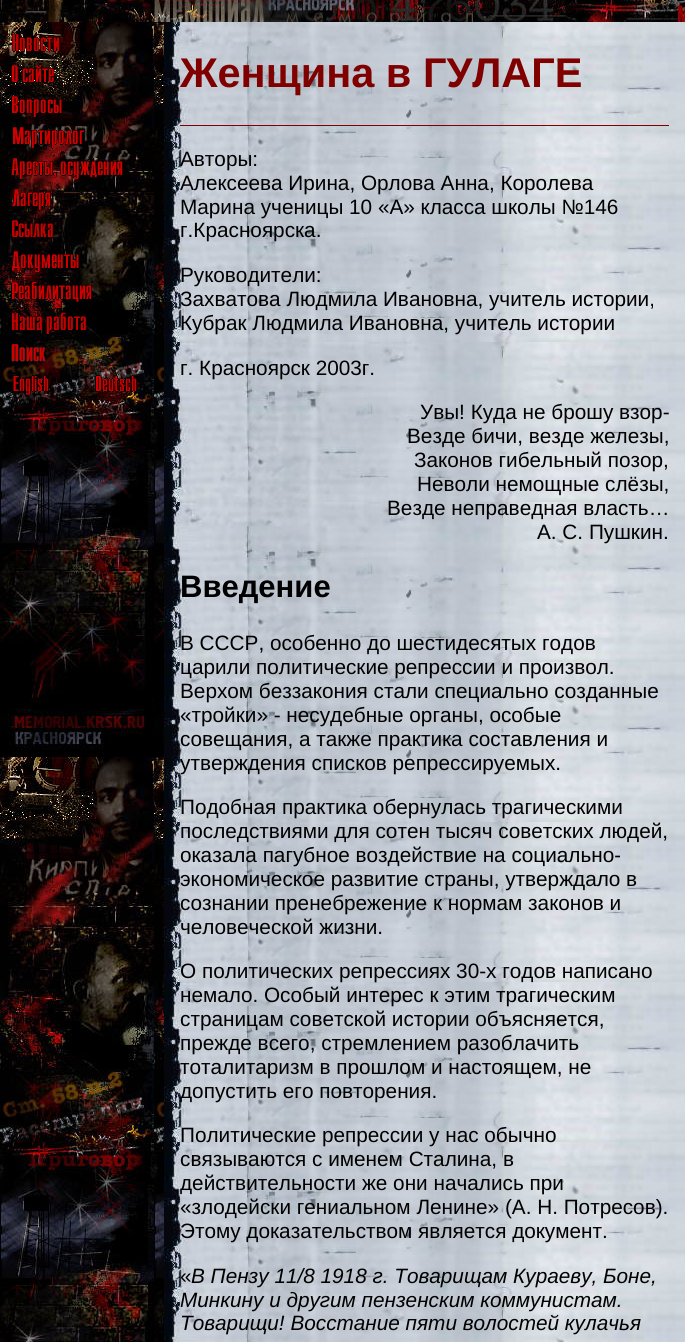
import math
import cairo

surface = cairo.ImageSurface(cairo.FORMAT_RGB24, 685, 1342)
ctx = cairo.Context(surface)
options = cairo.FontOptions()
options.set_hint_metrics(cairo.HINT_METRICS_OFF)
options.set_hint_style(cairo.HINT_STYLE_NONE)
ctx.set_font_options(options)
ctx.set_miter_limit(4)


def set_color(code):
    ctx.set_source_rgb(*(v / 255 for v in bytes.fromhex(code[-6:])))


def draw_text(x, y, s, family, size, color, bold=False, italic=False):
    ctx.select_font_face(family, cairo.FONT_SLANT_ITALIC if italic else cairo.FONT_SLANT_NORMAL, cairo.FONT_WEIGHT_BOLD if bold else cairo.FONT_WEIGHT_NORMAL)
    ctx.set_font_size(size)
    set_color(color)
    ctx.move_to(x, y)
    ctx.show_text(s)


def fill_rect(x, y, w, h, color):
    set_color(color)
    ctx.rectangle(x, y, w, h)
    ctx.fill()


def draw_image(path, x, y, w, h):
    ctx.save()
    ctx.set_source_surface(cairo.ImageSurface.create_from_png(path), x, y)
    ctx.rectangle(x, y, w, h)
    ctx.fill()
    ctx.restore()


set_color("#ffffff")
ctx.paint()
draw_image("assets/img1.png", 0, 0, 685, 22)
draw_image("assets/img2.png", 0, 22, 164, 1320)
draw_image("assets/img3.png", 12, 34, 48, 18)
draw_image("assets/img4.png", 11, 65, 43, 18)
draw_image("assets/img5.png", 11, 96, 51, 22)
draw_image("assets/img6.png", 13, 127, 72, 22)
draw_image("assets/img7.png", 11, 158, 112, 22)
draw_image("assets/img8.png", 12, 189, 39, 22)
draw_image("assets/img9.png", 11, 220, 42, 18)
draw_image("assets/img10.png", 11, 251, 68, 22)
draw_image("assets/img11.png", 11, 281, 81, 21)
draw_image("assets/img12.png", 11, 312, 75, 22)
draw_image("assets/img13.png", 11, 344, 35, 18)
draw_image("assets/img14.png", 13, 375, 36, 20)
draw_image("assets/img15.png", 95, 375, 42, 17)
draw_image("assets/img16.png", 164, 22, 521, 1320)
draw_text(180, 87, "Женщина в ГУЛАГЕ", "Liberation Sans", 41.5, "#800000", bold=True)
fill_rect(180, 125, 489, 1, "#800000")
draw_text(180, 166, "Авторы:", "Liberation Sans", 20.75, "#000000")
draw_text(180, 190, "Алексеева Ирина, Орлова Анна, Королева", "Liberation Sans", 20.75, "#000000")
draw_text(180, 214, "Марина ученицы 10 «А» класса школы №146", "Liberation Sans", 20.75, "#000000")
draw_text(180, 237, "г.Красноярска.", "Liberation Sans", 20.75, "#000000")
draw_text(180, 282, "Руководители:", "Liberation Sans", 20.75, "#000000")
draw_text(180, 306, "Захватова Людмила Ивановна, учитель истории,", "Liberation Sans", 20.75, "#000000")
draw_text(180, 330, "Кубрак Людмила Ивановна, учитель истории", "Liberation Sans", 20.75, "#000000")
draw_text(180, 375, "г. Красноярск 2003г.", "Liberation Sans", 20.75, "#000000")
draw_text(420, 419, "Увы! Куда не брошу взор-", "Liberation Sans", 20.75, "#000000")
draw_text(407, 443, "Везде бичи, везде железы,", "Liberation Sans", 20.75, "#000000")
draw_text(414, 467, "Законов гибельный позор,", "Liberation Sans", 20.75, "#000000")
draw_text(417, 491, "Неволи немощные слёзы,", "Liberation Sans", 20.75, "#000000")
draw_text(387, 515, "Везде неправедная власть…", "Liberation Sans", 20.75, "#000000")
draw_text(537, 539, "А. С. Пушкин.", "Liberation Sans", 20.75, "#000000")
draw_text(180, 597, "Введение", "Liberation Sans", 31, "#000000", bold=True)
draw_text(180, 650, "В СССР, особенно до шестидесятых годов", "Liberation Sans", 20.75, "#000000")
draw_text(180, 674, "царили политические репрессии и произвол.", "Liberation Sans", 20.75, "#000000")
draw_text(180, 698, "Верхом беззакония стали специально созданные", "Liberation Sans", 20.75, "#000000")
draw_text(180, 722, "«тройки» - несудебные органы, особые", "Liberation Sans", 20.75, "#000000")
draw_text(180, 746, "совещания, а также практика составления и", "Liberation Sans", 20.75, "#000000")
draw_text(180, 770, "утверждения списков репрессируемых.", "Liberation Sans", 20.75, "#000000")
draw_text(180, 814, "Подобная практика обернулась трагическими", "Liberation Sans", 20.75, "#000000")
draw_text(180, 838, "последствиями для сотен тысяч советских людей,", "Liberation Sans", 20.75, "#000000")
draw_text(180, 862, "оказала пагубное воздействие на социально-", "Liberation Sans", 20.75, "#000000")
draw_text(180, 886, "экономическое развитие страны, утверждало в", "Liberation Sans", 20.75, "#000000")
draw_text(180, 910, "сознании пренебрежение к нормам законов и", "Liberation Sans", 20.75, "#000000")
draw_text(180, 934, "человеческой жизни.", "Liberation Sans", 20.75, "#000000")
draw_text(180, 978, "О политических репрессиях 30-х годов написано", "Liberation Sans", 20.75, "#000000")
draw_text(180, 1002, "немало. Особый интерес к этим трагическим", "Liberation Sans", 20.75, "#000000")
draw_text(180, 1026, "страницам советской истории объясняется,", "Liberation Sans", 20.75, "#000000")
draw_text(180, 1050, "прежде всего, стремлением разоблачить", "Liberation Sans", 20.75, "#000000")
draw_text(180, 1074, "тоталитаризм в прошлом и настоящем, не", "Liberation Sans", 20.75, "#000000")
draw_text(180, 1098, "допустить его повторения.", "Liberation Sans", 20.75, "#000000")
draw_text(180, 1142, "Политические репрессии у нас обычно", "Liberation Sans", 20.75, "#000000")
draw_text(180, 1166, "связываются с именем Сталина, в", "Liberation Sans", 20.75, "#000000")
draw_text(180, 1190, "действительности же они начались при", "Liberation Sans", 20.75, "#000000")
draw_text(180, 1214, "«злодейски гениальном Ленине» (А. Н. Потресов).", "Liberation Sans", 20.75, "#000000")
draw_text(180, 1238, "Этому доказательством является документ.", "Liberation Sans", 20.75, "#000000")
draw_text(180, 1283, "«", "Liberation Sans", 20.75, "#000000")
draw_text(191, 1283, "В Пензу 11/8 1918 г. Товарищам Кураеву, Боне,", "Liberation Sans", 20.75, "#000000", italic=True)
draw_text(180, 1307, "Минкину и другим пензенским коммунистам.", "Liberation Sans", 20.75, "#000000", italic=True)
draw_text(180, 1330, "Товарищи! Восстание пяти волостей кулачья", "Liberation Sans", 20.75, "#000000", italic=True)
surface.write_to_png("output.png")
